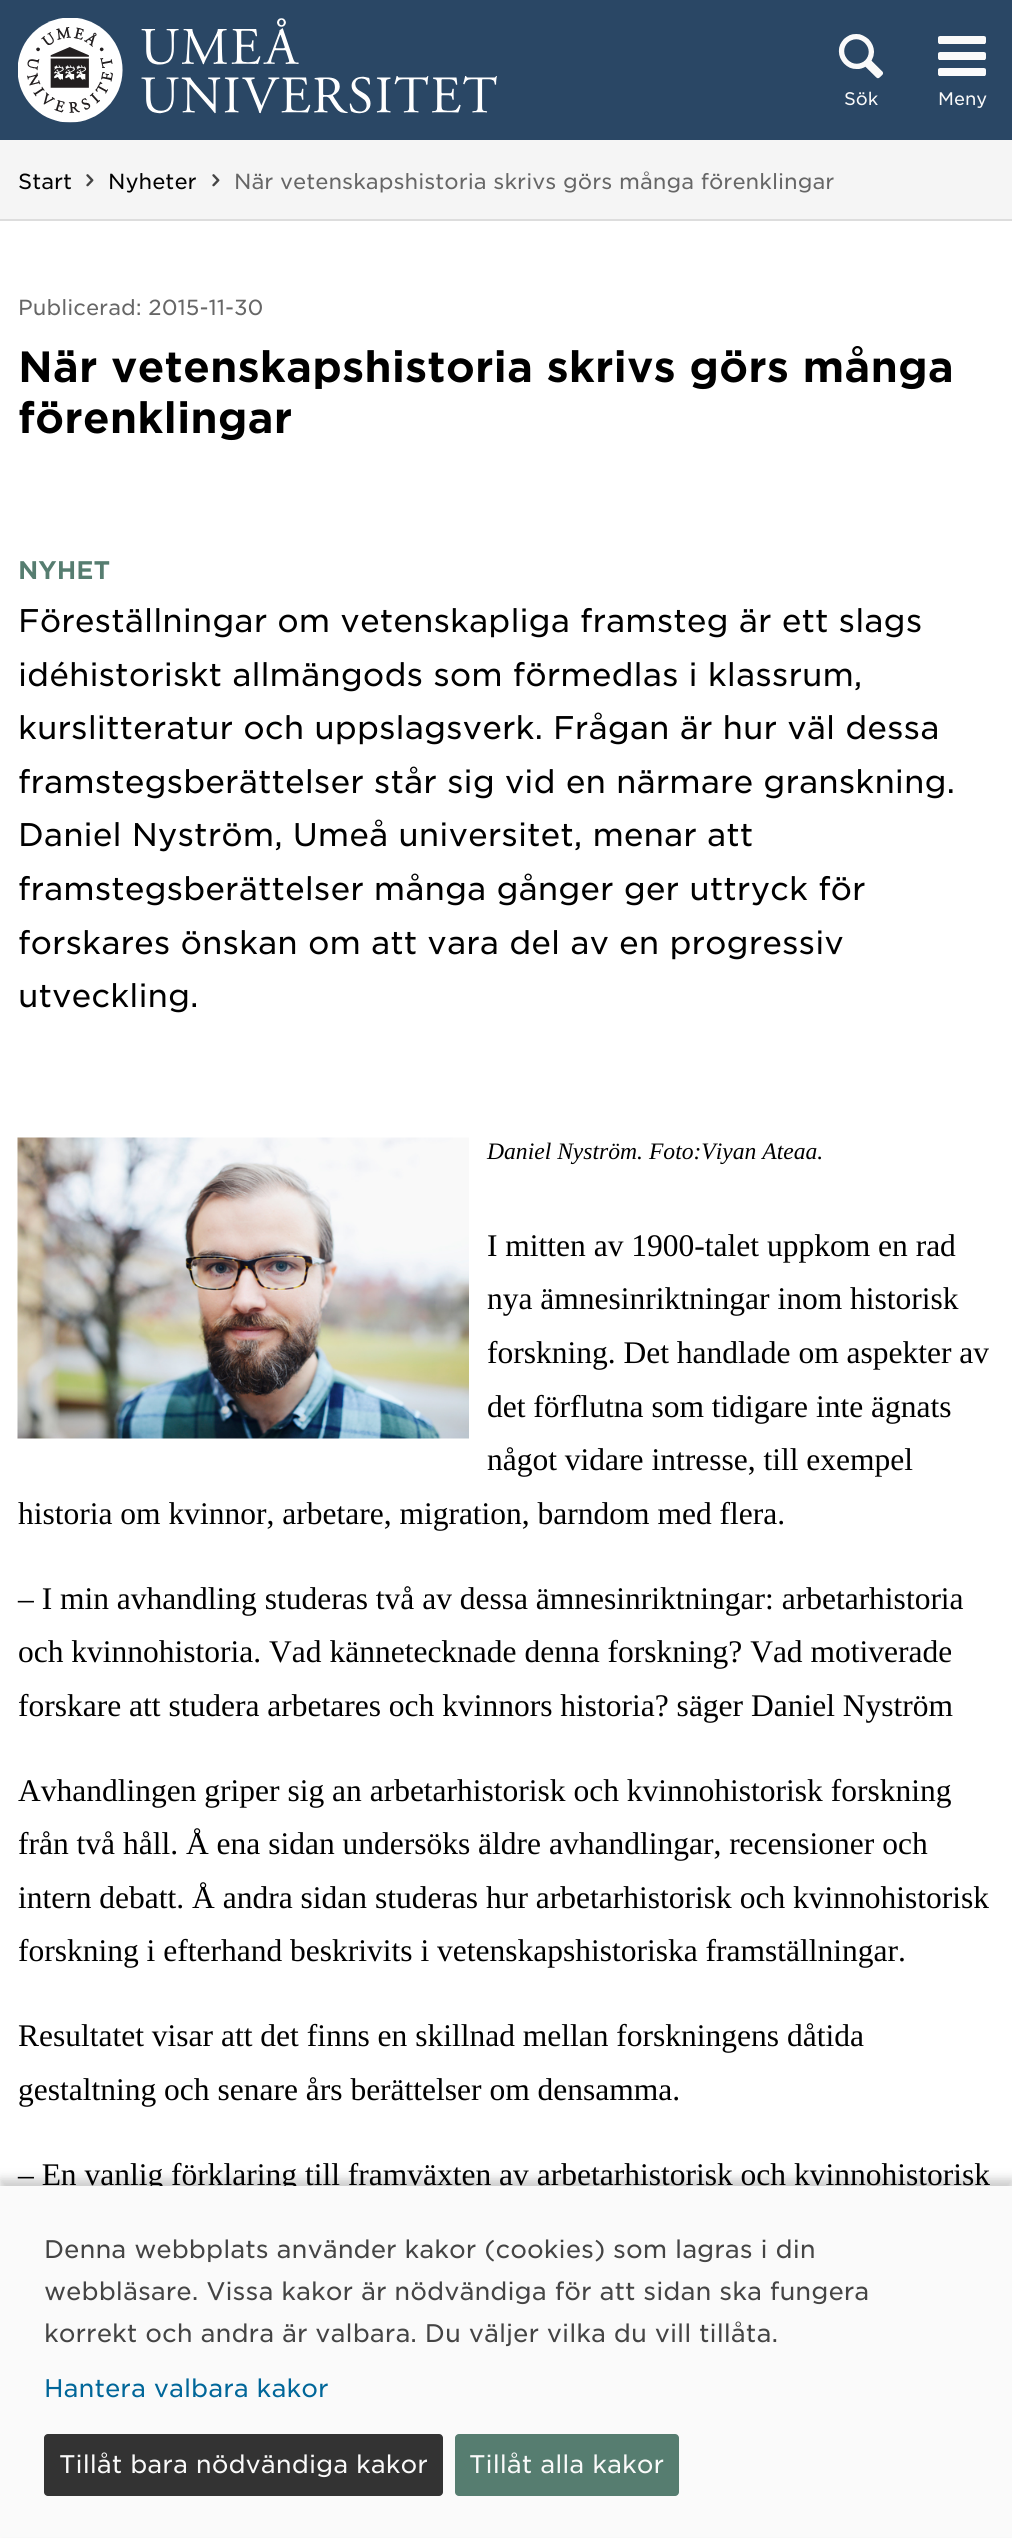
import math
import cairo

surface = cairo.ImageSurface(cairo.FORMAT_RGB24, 1012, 2538)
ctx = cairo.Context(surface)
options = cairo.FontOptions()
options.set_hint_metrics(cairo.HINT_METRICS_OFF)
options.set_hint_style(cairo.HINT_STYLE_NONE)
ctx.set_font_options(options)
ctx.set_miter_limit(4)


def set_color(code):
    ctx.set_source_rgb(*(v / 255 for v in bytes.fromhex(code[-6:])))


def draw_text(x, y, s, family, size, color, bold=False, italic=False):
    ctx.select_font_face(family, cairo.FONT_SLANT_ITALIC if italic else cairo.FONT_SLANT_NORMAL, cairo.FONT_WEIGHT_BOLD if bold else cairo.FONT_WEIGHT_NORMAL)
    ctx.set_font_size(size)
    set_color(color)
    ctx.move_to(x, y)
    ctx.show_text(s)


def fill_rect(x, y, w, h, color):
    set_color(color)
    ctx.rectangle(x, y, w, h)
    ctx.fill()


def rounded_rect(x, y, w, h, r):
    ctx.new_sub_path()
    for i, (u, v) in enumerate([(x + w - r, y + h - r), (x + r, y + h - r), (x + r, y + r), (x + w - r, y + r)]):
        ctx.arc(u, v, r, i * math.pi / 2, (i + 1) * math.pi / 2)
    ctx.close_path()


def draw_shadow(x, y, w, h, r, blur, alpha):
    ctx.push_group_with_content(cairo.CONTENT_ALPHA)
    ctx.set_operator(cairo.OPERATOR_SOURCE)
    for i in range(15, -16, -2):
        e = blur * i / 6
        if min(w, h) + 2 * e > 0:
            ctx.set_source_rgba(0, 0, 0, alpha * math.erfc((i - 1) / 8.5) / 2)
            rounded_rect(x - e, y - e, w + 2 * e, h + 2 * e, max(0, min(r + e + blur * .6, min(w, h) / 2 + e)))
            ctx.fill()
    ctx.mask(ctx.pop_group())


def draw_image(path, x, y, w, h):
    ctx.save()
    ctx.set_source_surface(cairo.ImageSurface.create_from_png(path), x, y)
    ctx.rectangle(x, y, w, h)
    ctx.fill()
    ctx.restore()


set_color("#ffffff")
ctx.paint()
fill_rect(0, 0, 1012, 140, "#2a4765")
draw_image("assets/img1.png", 18, 18, 479, 105)
draw_image("assets/img2.png", 838, 34, 45, 45)
draw_text(844, 105, "Sök", "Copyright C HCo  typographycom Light", 17.5, "#fafafa")
draw_image("assets/img3.png", 938, 36, 48, 40)
draw_text(938, 105, "Meny", "Copyright C HCo  typographycom Light", 17.5, "#fafafa")
fill_rect(0, 140, 1012, 79, "#f5f5f5")
fill_rect(0, 219, 1012, 2, "#dddddd")
draw_text(18, 189, "Start", "Copyright C HCo  typographycom Light", 21, "#000000")
draw_image("assets/img4.png", 86, 174, 8, 13)
draw_text(108, 189, "Nyheter", "Copyright C HCo  typographycom Light", 21, "#000000")
draw_image("assets/img4.png", 212, 174, 8, 13)
draw_text(234, 189, "När vetenskapshistoria skrivs görs många förenklingar", "Copyright C HCo  typographycom Light", 21, "#666666")
draw_text(18, 315, "Publicerad: 2015-11-30", "Copyright C HCo  typographycom Light", 21, "#666666")
draw_text(18, 382, "När vetenskapshistoria skrivs görs många", "Copyright C HCo  typographycom", 42, "#000000")
draw_text(18, 433, "förenklingar", "Copyright C HCo  typographycom", 42, "#000000")
draw_text(18, 579, "NYHET", "Copyright C HCo  typographycom", 24.5, "#567d70")
draw_text(18, 632, "Föreställningar om vetenskapliga framsteg är ett slags", "Copyright C HCo  typographycom Light", 31.5, "#000000")
draw_text(18, 686, "idéhistoriskt allmängods som förmedlas i klassrum,", "Copyright C HCo  typographycom Light", 31.5, "#000000")
draw_text(18, 739, "kurslitteratur och uppslagsverk. Frågan är hur väl dessa", "Copyright C HCo  typographycom Light", 31.5, "#000000")
draw_text(18, 793, "framstegsberättelser står sig vid en närmare granskning.", "Copyright C HCo  typographycom Light", 31.5, "#000000")
draw_text(18, 846, "Daniel Nyström, Umeå universitet, menar att", "Copyright C HCo  typographycom Light", 31.5, "#000000")
draw_text(18, 900, "framstegsberättelser många gånger ger uttryck för", "Copyright C HCo  typographycom Light", 31.5, "#000000")
draw_text(18, 954, "forskares önskan om att vara del av en progressiv", "Copyright C HCo  typographycom Light", 31.5, "#000000")
draw_text(18, 1007, "utveckling.", "Copyright C HCo  typographycom Light", 31.5, "#000000")
draw_image("assets/img5.png", 17, 1137, 452, 302)
draw_text(487, 1159, "Daniel Nyström. Foto:Viyan Ateaa.", "Liberation Serif", 23.6, "#000000", italic=True)
draw_text(487, 1256, "I mitten av 1900-talet uppkom en rad", "Liberation Serif", 31.5, "#000000")
draw_text(487, 1309, "nya ämnesinriktningar inom historisk", "Liberation Serif", 31.5, "#000000")
draw_text(487, 1363, "forskning. Det handlade om aspekter av", "Liberation Serif", 31.5, "#000000")
draw_text(487, 1417, "det förflutna som tidigare inte ägnats", "Liberation Serif", 31.5, "#000000")
draw_text(487, 1470, "något vidare intresse, till exempel", "Liberation Serif", 31.5, "#000000")
draw_text(18, 1524, "historia om kvinnor, arbetare, migration, barndom med flera.", "Liberation Serif", 31.5, "#000000")
draw_text(18, 1609, "– I min avhandling studeras två av dessa ämnesinriktningar: arbetarhistoria", "Liberation Serif", 31.5, "#000000")
draw_text(18, 1662, "och kvinnohistoria. Vad kännetecknade denna forskning? Vad motiverade", "Liberation Serif", 31.5, "#000000")
draw_text(18, 1716, "forskare att studera arbetares och kvinnors historia? säger Daniel Nyström", "Liberation Serif", 31.5, "#000000")
draw_text(18, 1801, "Avhandlingen griper sig an arbetarhistorisk och kvinnohistorisk forskning", "Liberation Serif", 31.5, "#000000")
draw_text(18, 1854, "från två håll. Å ena sidan undersöks äldre avhandlingar, recensioner och", "Liberation Serif", 31.5, "#000000")
draw_text(18, 1908, "intern debatt. Å andra sidan studeras hur arbetarhistorisk och kvinnohistorisk", "Liberation Serif", 31.5, "#000000")
draw_text(18, 1961, "forskning i efterhand beskrivits i vetenskapshistoriska framställningar.", "Liberation Serif", 31.5, "#000000")
draw_text(18, 2046, "Resultatet visar att det finns en skillnad mellan forskningens dåtida", "Liberation Serif", 31.5, "#000000")
draw_text(18, 2100, "gestaltning och senare års berättelser om densamma.", "Liberation Serif", 31.5, "#000000")
draw_text(18, 2185, "– En vanlig förklaring till framväxten av arbetarhistorisk och kvinnohistorisk", "Liberation Serif", 31.5, "#000000")
set_color("#000000")
draw_shadow(0, 2179, 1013, 353, 0, 5, 0.2)
fill_rect(0, 2186, 1012, 351, "#fafafa")
draw_text(44, 2258, "Denna webbplats använder kakor (cookies) som lagras i din", "Copyright C HCo  typographycom Light", 24.5, "#444444")
draw_text(44, 2300, "webbläsare. Vissa kakor är nödvändiga för att sidan ska fungera", "Copyright C HCo  typographycom Light", 24.5, "#444444")
draw_text(44, 2342, "korrekt och andra är valbara. Du väljer vilka du vill tillåta.", "Copyright C HCo  typographycom Light", 24.5, "#444444")
draw_text(44, 2397, "Hantera valbara kakor", "Copyright C HCo  typographycom Light", 24.5, "#006699")
set_color("#333333")
rounded_rect(44, 2434, 399, 62, 4)
ctx.fill()
draw_text(59, 2473, "Tillåt bara nödvändiga kakor", "Copyright C HCo  typographycom Light", 24.5, "#fafafa")
set_color("#567d70")
rounded_rect(455, 2434, 224, 62, 4)
ctx.fill()
draw_text(469, 2473, "Tillåt alla kakor", "Copyright C HCo  typographycom Light", 24.5, "#fafafa")
surface.write_to_png("output.png")
